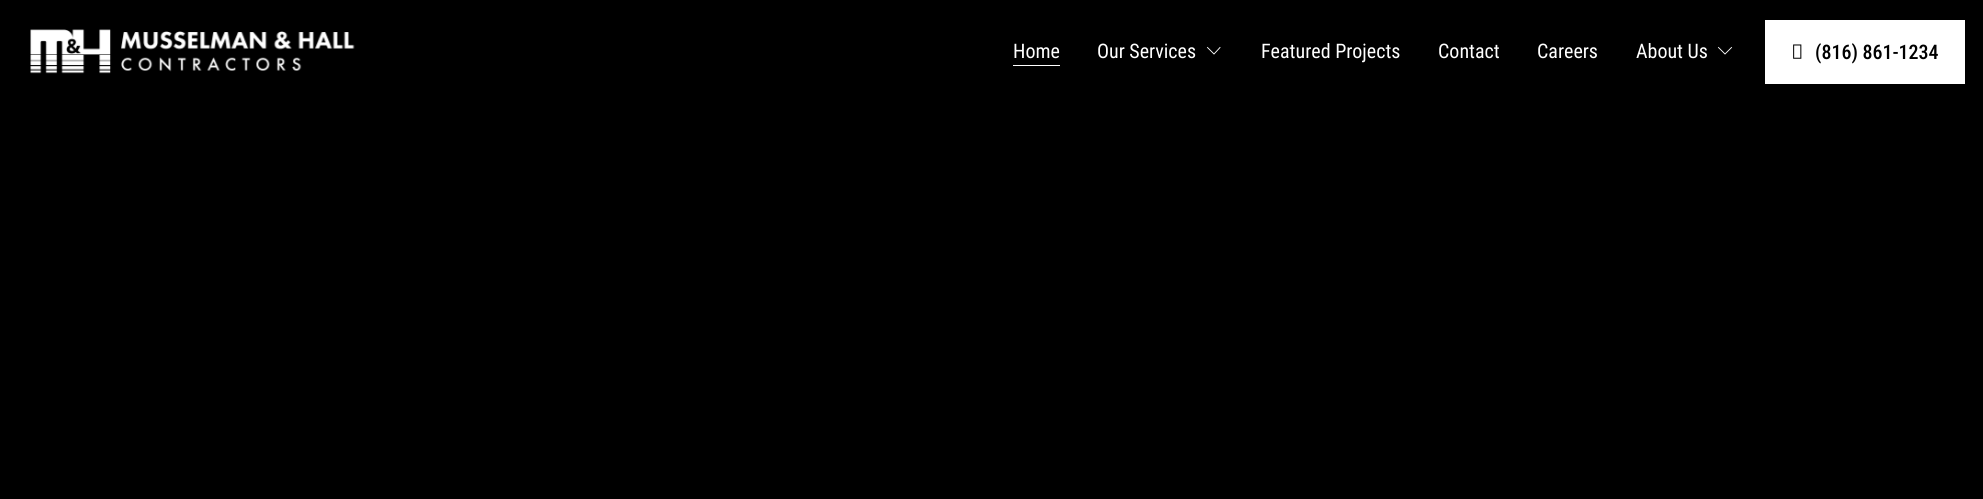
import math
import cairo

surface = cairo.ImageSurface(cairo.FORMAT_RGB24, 1983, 499)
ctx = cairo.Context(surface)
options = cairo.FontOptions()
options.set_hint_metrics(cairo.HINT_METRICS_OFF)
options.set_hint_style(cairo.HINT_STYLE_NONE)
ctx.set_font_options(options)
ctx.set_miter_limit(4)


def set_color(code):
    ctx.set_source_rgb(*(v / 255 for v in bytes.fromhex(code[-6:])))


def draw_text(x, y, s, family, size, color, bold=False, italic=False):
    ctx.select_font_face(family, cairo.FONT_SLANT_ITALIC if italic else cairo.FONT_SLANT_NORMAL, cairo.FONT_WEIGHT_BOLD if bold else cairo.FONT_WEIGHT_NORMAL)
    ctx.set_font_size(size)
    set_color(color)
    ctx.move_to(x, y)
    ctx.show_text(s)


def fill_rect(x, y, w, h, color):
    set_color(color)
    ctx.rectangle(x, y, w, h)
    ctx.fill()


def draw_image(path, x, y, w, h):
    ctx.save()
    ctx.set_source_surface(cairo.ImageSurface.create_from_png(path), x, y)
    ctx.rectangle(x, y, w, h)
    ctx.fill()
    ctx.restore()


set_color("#000000")
ctx.paint()
draw_image("assets/img1.png", 30, 29, 325, 45)
fill_rect(1013, 65, 47, 1, "#ffffff")
draw_text(1013, 58, "Home", "Roboto Condensed", 20, "#ffffff")
draw_text(1097, 58, "Our Services", "Roboto Condensed", 20, "#ffffff")
ctx.new_path()
ctx.move_to(1220, 47.5)
ctx.line_to(1214, 54)
ctx.line_to(1207.5, 47.5)
ctx.set_line_width(0.9)
ctx.set_line_cap(cairo.LINE_CAP_SQUARE)
ctx.stroke()
draw_text(1261, 58, "Featured Projects", "Roboto Condensed", 20, "#ffffff")
draw_text(1438, 58, "Contact", "Roboto Condensed", 20, "#ffffff")
draw_text(1537, 58, "Careers", "Roboto Condensed", 20, "#ffffff")
draw_text(1636, 58, "About Us", "Roboto Condensed", 20, "#ffffff")
ctx.new_path()
ctx.move_to(1731.5, 47.5)
ctx.line_to(1725, 54)
ctx.line_to(1718.5, 47.5)
ctx.stroke()
fill_rect(1765, 20, 200, 64, "#ffffff")
draw_image("assets/img2.png", 1793, 44, 9, 15)
draw_text(1815, 59, "(816) 861-1234", "Roboto Condensed Medium", 20, "#000000")
surface.write_to_png("output.png")
